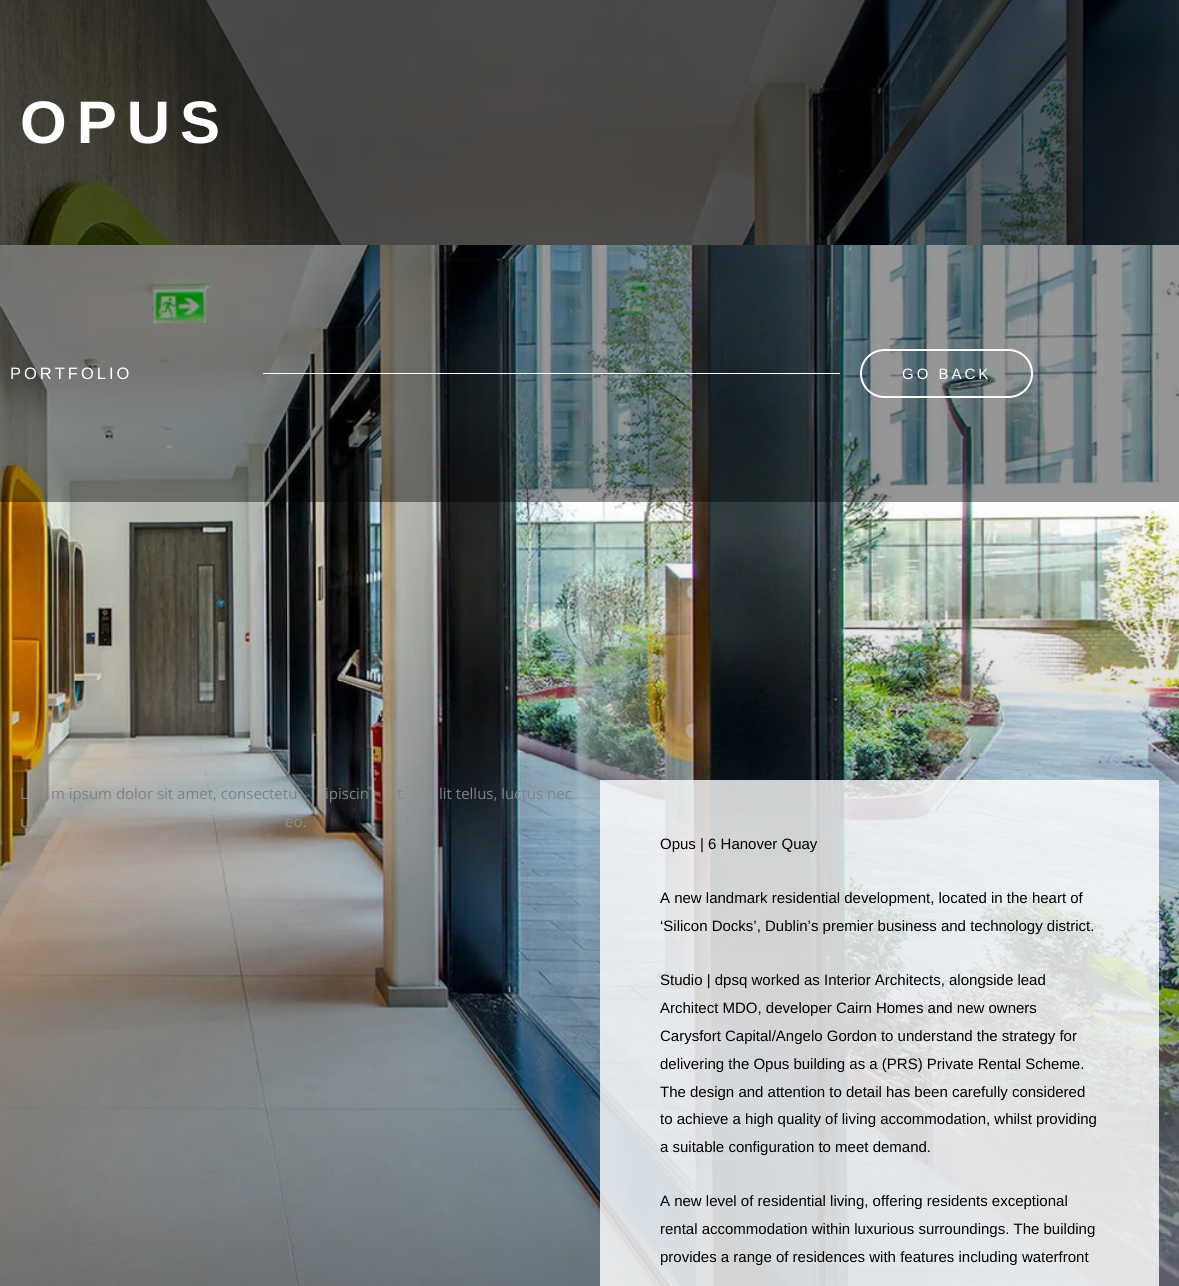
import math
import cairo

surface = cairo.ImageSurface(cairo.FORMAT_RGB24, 1179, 1286)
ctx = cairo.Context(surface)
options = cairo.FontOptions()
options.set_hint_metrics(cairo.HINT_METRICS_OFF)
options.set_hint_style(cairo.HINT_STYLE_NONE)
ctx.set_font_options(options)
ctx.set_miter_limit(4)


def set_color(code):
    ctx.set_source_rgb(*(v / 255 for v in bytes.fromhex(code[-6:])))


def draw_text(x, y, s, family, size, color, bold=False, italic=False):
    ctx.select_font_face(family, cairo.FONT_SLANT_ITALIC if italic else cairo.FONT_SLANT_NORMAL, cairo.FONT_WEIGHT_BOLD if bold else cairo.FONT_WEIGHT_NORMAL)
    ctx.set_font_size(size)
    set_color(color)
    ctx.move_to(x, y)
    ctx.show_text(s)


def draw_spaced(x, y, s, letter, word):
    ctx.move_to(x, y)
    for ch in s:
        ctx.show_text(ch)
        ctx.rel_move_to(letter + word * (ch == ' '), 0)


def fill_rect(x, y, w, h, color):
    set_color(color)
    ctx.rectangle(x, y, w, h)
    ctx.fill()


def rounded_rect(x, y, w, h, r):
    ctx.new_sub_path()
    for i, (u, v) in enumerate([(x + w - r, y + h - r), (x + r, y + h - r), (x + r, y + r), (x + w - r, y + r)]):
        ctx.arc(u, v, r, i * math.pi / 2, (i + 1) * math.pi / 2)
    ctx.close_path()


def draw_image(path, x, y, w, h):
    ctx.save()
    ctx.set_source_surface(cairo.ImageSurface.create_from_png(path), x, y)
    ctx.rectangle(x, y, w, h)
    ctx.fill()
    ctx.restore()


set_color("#ffffff")
ctx.paint()
draw_image("assets/img1.png", 0, 0, 1179, 245)
ctx.select_font_face("Liberation Sans", cairo.FONT_SLANT_NORMAL, cairo.FONT_WEIGHT_BOLD)
ctx.set_font_size(60)
set_color("#ffffff")
draw_spaced(20, 143, "OPUS", 10, 0)
draw_image("assets/img2.png", 0, 245, 1179, 257)
ctx.select_font_face("Liberation Sans")
ctx.set_font_size(16.5)
draw_spaced(10, 379, "PORTFOLIO", 3, 0)
fill_rect(263, 373, 577, 1, "#ffffff")
rounded_rect(861, 350, 171, 47, 23.5)
ctx.stroke()
ctx.set_font_size(15)
draw_spaced(902, 379, "GO BACK", 3, 0)
draw_image("assets/img3.png", 0, 502, 1179, 784)
draw_text(20, 799, "L", "Open Sans", 15, "#7d8486")
draw_text(51, 799, "m ipsum dolor sit amet, consectetu", "Open Sans", 15, "#7d8486")
draw_text(325, 799, "ipiscin", "Open Sans", 15, "#7d8486")
draw_text(397, 799, "t.", "Open Sans", 15, "#7d8486")
draw_text(439, 799, "lit tellus, luctus nec", "Open Sans", 15, "#7d8486")
draw_text(20, 827, "u", "Open Sans", 15, "#968f87")
draw_text(285, 827, "eo.", "Open Sans", 15, "#968f87")
draw_text(660, 849, "Opus | 6 Hanover Quay", "Liberation Sans", 15, "#000000")
draw_text(660, 903, "A new landmark residential development, located in the heart of", "Liberation Sans", 15, "#000000")
draw_text(660, 931, "‘Silicon Docks’, Dublin’s premier business and technology district.", "Liberation Sans", 15, "#000000")
draw_text(660, 985, "Studio | dpsq worked as Interior Architects, alongside lead", "Liberation Sans", 15, "#000000")
draw_text(660, 1013, "Architect MDO, developer Cairn Homes and new owners", "Liberation Sans", 15, "#000000")
draw_text(660, 1041, "Carysfort Capital/Angelo Gordon to understand the strategy for", "Liberation Sans", 15, "#000000")
draw_text(660, 1069, "delivering the Opus building as a (PRS) Private Rental Scheme.", "Liberation Sans", 15, "#000000")
draw_text(660, 1097, "The design and attention to detail has been carefully considered", "Liberation Sans", 15, "#000000")
draw_text(660, 1124, "to achieve a high quality of living accommodation, whilst providing", "Liberation Sans", 15, "#000000")
draw_text(660, 1152, "a suitable configuration to meet demand.", "Liberation Sans", 15, "#000000")
draw_text(660, 1206, "A new level of residential living, offering residents exceptional", "Liberation Sans", 15, "#000000")
draw_text(660, 1234, "rental accommodation within luxurious surroundings. The building", "Liberation Sans", 15, "#000000")
draw_text(660, 1262, "provides a range of residences with features including waterfront", "Liberation Sans", 15, "#000000")
surface.write_to_png("output.png")
